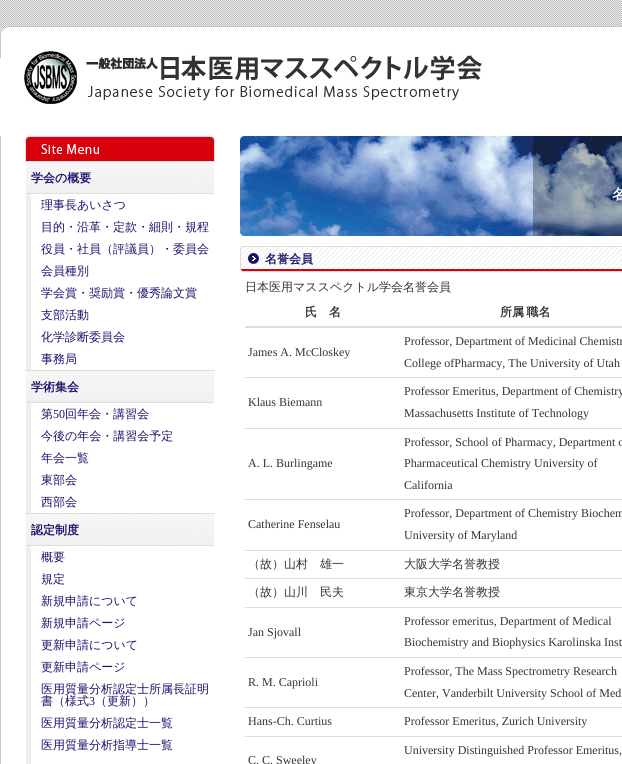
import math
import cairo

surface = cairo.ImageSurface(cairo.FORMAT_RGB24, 622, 764)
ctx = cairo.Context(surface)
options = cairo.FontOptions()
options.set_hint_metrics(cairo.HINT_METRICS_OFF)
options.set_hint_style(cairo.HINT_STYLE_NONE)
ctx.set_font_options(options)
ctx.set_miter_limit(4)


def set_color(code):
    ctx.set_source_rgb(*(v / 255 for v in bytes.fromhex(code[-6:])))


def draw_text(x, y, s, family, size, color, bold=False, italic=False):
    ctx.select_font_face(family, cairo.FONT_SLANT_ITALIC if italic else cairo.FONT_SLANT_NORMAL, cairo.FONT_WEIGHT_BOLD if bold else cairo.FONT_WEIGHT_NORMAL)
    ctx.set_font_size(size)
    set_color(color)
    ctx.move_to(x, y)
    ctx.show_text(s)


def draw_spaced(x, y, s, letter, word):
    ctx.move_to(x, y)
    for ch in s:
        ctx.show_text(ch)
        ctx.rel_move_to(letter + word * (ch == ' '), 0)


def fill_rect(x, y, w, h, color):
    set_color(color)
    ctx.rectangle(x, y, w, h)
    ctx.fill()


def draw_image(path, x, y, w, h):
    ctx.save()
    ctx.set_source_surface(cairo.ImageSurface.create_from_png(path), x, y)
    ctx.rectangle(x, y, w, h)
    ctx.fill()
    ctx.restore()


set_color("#ffffff")
ctx.paint()
draw_image("assets/img1.png", 0, 0, 622, 31)
draw_image("assets/img2.png", 0, 26, 622, 32)
draw_image("assets/img3.png", 24, 51, 458, 53)
fill_rect(0, 136, 1, 628, "#c7c7c7")
draw_image("assets/img4.png", 25, 136, 190, 26)
fill_rect(25, 370, 190, 1, "#dddddd")
draw_image("assets/img5.png", 26, 162, 188, 32)
draw_text(31, 182, "学会の概要", "WenQuanYi Zen Hei", 12, "#1b126d", bold=True)
fill_rect(26, 194, 5, 176, "#eeeeee")
draw_text(41, 209, "理事長あいさつ", "WenQuanYi Zen Hei Medium", 12, "#1b126d")
draw_text(41, 231, "目的・沿革・定款・細則・規程", "WenQuanYi Zen Hei Medium", 12, "#1b126d")
draw_text(41, 253, "役員・社員（評議員）・委員会", "WenQuanYi Zen Hei Medium", 12, "#1b126d")
draw_text(41, 275, "会員種別", "WenQuanYi Zen Hei Medium", 12, "#1b126d")
draw_text(41, 297, "学会賞・奨励賞・優秀論文賞", "WenQuanYi Zen Hei Medium", 12, "#1b126d")
draw_text(41, 319, "支部活動", "WenQuanYi Zen Hei Medium", 12, "#1b126d")
draw_text(41, 341, "化学診断委員会", "WenQuanYi Zen Hei Medium", 12, "#1b126d")
draw_text(41, 363, "事務局", "WenQuanYi Zen Hei Medium", 12, "#1b126d")
fill_rect(25, 513, 190, 1, "#dddddd")
draw_image("assets/img5.png", 26, 371, 188, 32)
draw_text(31, 391, "学術集会", "WenQuanYi Zen Hei", 12, "#1b126d", bold=True)
fill_rect(26, 403, 5, 110, "#eeeeee")
draw_text(41, 418, "第", "WenQuanYi Zen Hei Medium", 12, "#1b126d")
draw_text(53, 418, "50", "Liberation Serif", 12, "#1b126d")
draw_text(65, 418, "回年会・講習会", "WenQuanYi Zen Hei Medium", 12, "#1b126d")
draw_text(41, 440, "今後の年会・講習会予定", "WenQuanYi Zen Hei Medium", 12, "#1b126d")
draw_text(41, 462, "年会一覧", "WenQuanYi Zen Hei Medium", 12, "#1b126d")
draw_text(41, 484, "東部会", "WenQuanYi Zen Hei Medium", 12, "#1b126d")
draw_text(41, 506, "西部会", "WenQuanYi Zen Hei Medium", 12, "#1b126d")
draw_image("assets/img5.png", 26, 514, 188, 32)
draw_text(31, 534, "認定制度", "WenQuanYi Zen Hei", 12, "#1b126d", bold=True)
fill_rect(26, 546, 5, 218, "#eeeeee")
draw_text(41, 561, "概要", "WenQuanYi Zen Hei Medium", 12, "#1b126d")
draw_text(41, 583, "規定", "WenQuanYi Zen Hei Medium", 12, "#1b126d")
draw_text(41, 605, "新規申請について", "WenQuanYi Zen Hei Medium", 12, "#1b126d")
draw_text(41, 627, "新規申請ページ", "WenQuanYi Zen Hei Medium", 12, "#1b126d")
draw_text(41, 649, "更新申請について", "WenQuanYi Zen Hei Medium", 12, "#1b126d")
draw_text(41, 671, "更新申請ページ", "WenQuanYi Zen Hei Medium", 12, "#1b126d")
draw_text(41, 693, "医用質量分析認定士所属長証明", "WenQuanYi Zen Hei Medium", 12, "#1b126d")
draw_text(41, 705, "書（様式", "WenQuanYi Zen Hei Medium", 12, "#1b126d")
draw_text(89, 705, "3", "Liberation Serif", 12, "#1b126d")
draw_text(95, 705, "（更新））", "WenQuanYi Zen Hei Medium", 12, "#1b126d")
draw_text(41, 727, "医用質量分析認定士一覧", "WenQuanYi Zen Hei Medium", 12, "#1b126d")
draw_text(41, 749, "医用質量分析指導士一覧", "WenQuanYi Zen Hei Medium", 12, "#1b126d")
draw_image("assets/img6.png", 240, 136, 382, 100)
draw_text(612, 199, "名", "WenQuanYi Zen Hei", 14, "#ffffff", bold=True)
draw_image("assets/img7.png", 240, 246, 382, 26)
draw_text(265, 263, "名誉会員", "WenQuanYi Zen Hei", 12, "#1b126d", bold=True)
draw_text(245, 291, "日本医用マススペクトル学会名誉会員", "WenQuanYi Zen Hei Medium", 12, "#333333")
fill_rect(245, 326, 377, 2, "#dddddd")
draw_text(305, 316, "氏　名", "WenQuanYi Zen Hei", 12, "#333333", bold=True)
draw_spaced(500, 316, "所属 職名", 0, -1)
fill_rect(245, 377, 377, 1, "#dddddd")
draw_text(248, 356, "James A. McCloskey", "Liberation Serif", 12, "#333333")
draw_text(404, 345, "Professor, Department of Medicinal Chemistr", "Liberation Serif", 12, "#333333")
draw_text(404, 367, "College ofPharmacy, The University of Utah", "Liberation Serif", 12, "#333333")
fill_rect(245, 428, 377, 1, "#dddddd")
draw_text(248, 406, "Klaus Biemann", "Liberation Serif", 12, "#333333")
draw_text(404, 395, "Professor Emeritus, Department of Chemistry", "Liberation Serif", 12, "#333333")
draw_text(404, 417, "Massachusetts Institute of Technology", "Liberation Serif", 12, "#333333")
fill_rect(245, 499, 377, 1, "#dddddd")
draw_text(248, 467, "A. L. Burlingame", "Liberation Serif", 12, "#333333")
draw_text(404, 446, "Professor, School of Pharmacy, Department o", "Liberation Serif", 12, "#333333")
draw_text(404, 467, "Pharmaceutical Chemistry University of", "Liberation Serif", 12, "#333333")
draw_text(404, 489, "California", "Liberation Serif", 12, "#333333")
fill_rect(245, 550, 377, 1, "#dddddd")
draw_text(248, 528, "Catherine Fenselau", "Liberation Serif", 12, "#333333")
draw_text(404, 517, "Professor, Department of Chemistry Biochem", "Liberation Serif", 12, "#333333")
draw_text(404, 539, "University of Maryland", "Liberation Serif", 12, "#333333")
fill_rect(245, 578, 377, 1, "#dddddd")
draw_text(248, 568, "（故）山村　雄一", "WenQuanYi Zen Hei Medium", 12, "#333333")
draw_text(404, 568, "大阪大学名誉教授", "WenQuanYi Zen Hei Medium", 12, "#333333")
fill_rect(245, 607, 377, 1, "#dddddd")
draw_text(248, 596, "（故）山川　民夫", "WenQuanYi Zen Hei Medium", 12, "#333333")
draw_text(404, 596, "東京大学名誉教授", "WenQuanYi Zen Hei Medium", 12, "#333333")
fill_rect(245, 657, 377, 1, "#dddddd")
draw_text(248, 636, "Jan Sjovall", "Liberation Serif", 12, "#333333")
draw_text(404, 625, "Professor emeritus, Department of Medical", "Liberation Serif", 12, "#333333")
draw_text(404, 646, "Biochemistry and Biophysics Karolinska Inst", "Liberation Serif", 12, "#333333")
fill_rect(245, 707, 377, 1, "#dddddd")
draw_text(248, 686, "R. M. Caprioli", "Liberation Serif", 12, "#333333")
draw_text(404, 675, "Professor, The Mass Spectrometry Research", "Liberation Serif", 12, "#333333")
draw_text(404, 697, "Center, Vanderbilt University School of Med", "Liberation Serif", 12, "#333333")
fill_rect(245, 736, 377, 1, "#dddddd")
draw_text(248, 725, "Hans-Ch. Curtius", "Liberation Serif", 12, "#333333")
draw_text(404, 725, "Professor Emeritus, Zurich University", "Liberation Serif", 12, "#333333")
draw_text(404, 754, "University Distinguished Professor Emeritus,", "Liberation Serif", 12, "#333333")
draw_text(248, 764, "C. C. Sweeley", "Liberation Serif", 12, "#333333")
surface.write_to_png("output.png")
